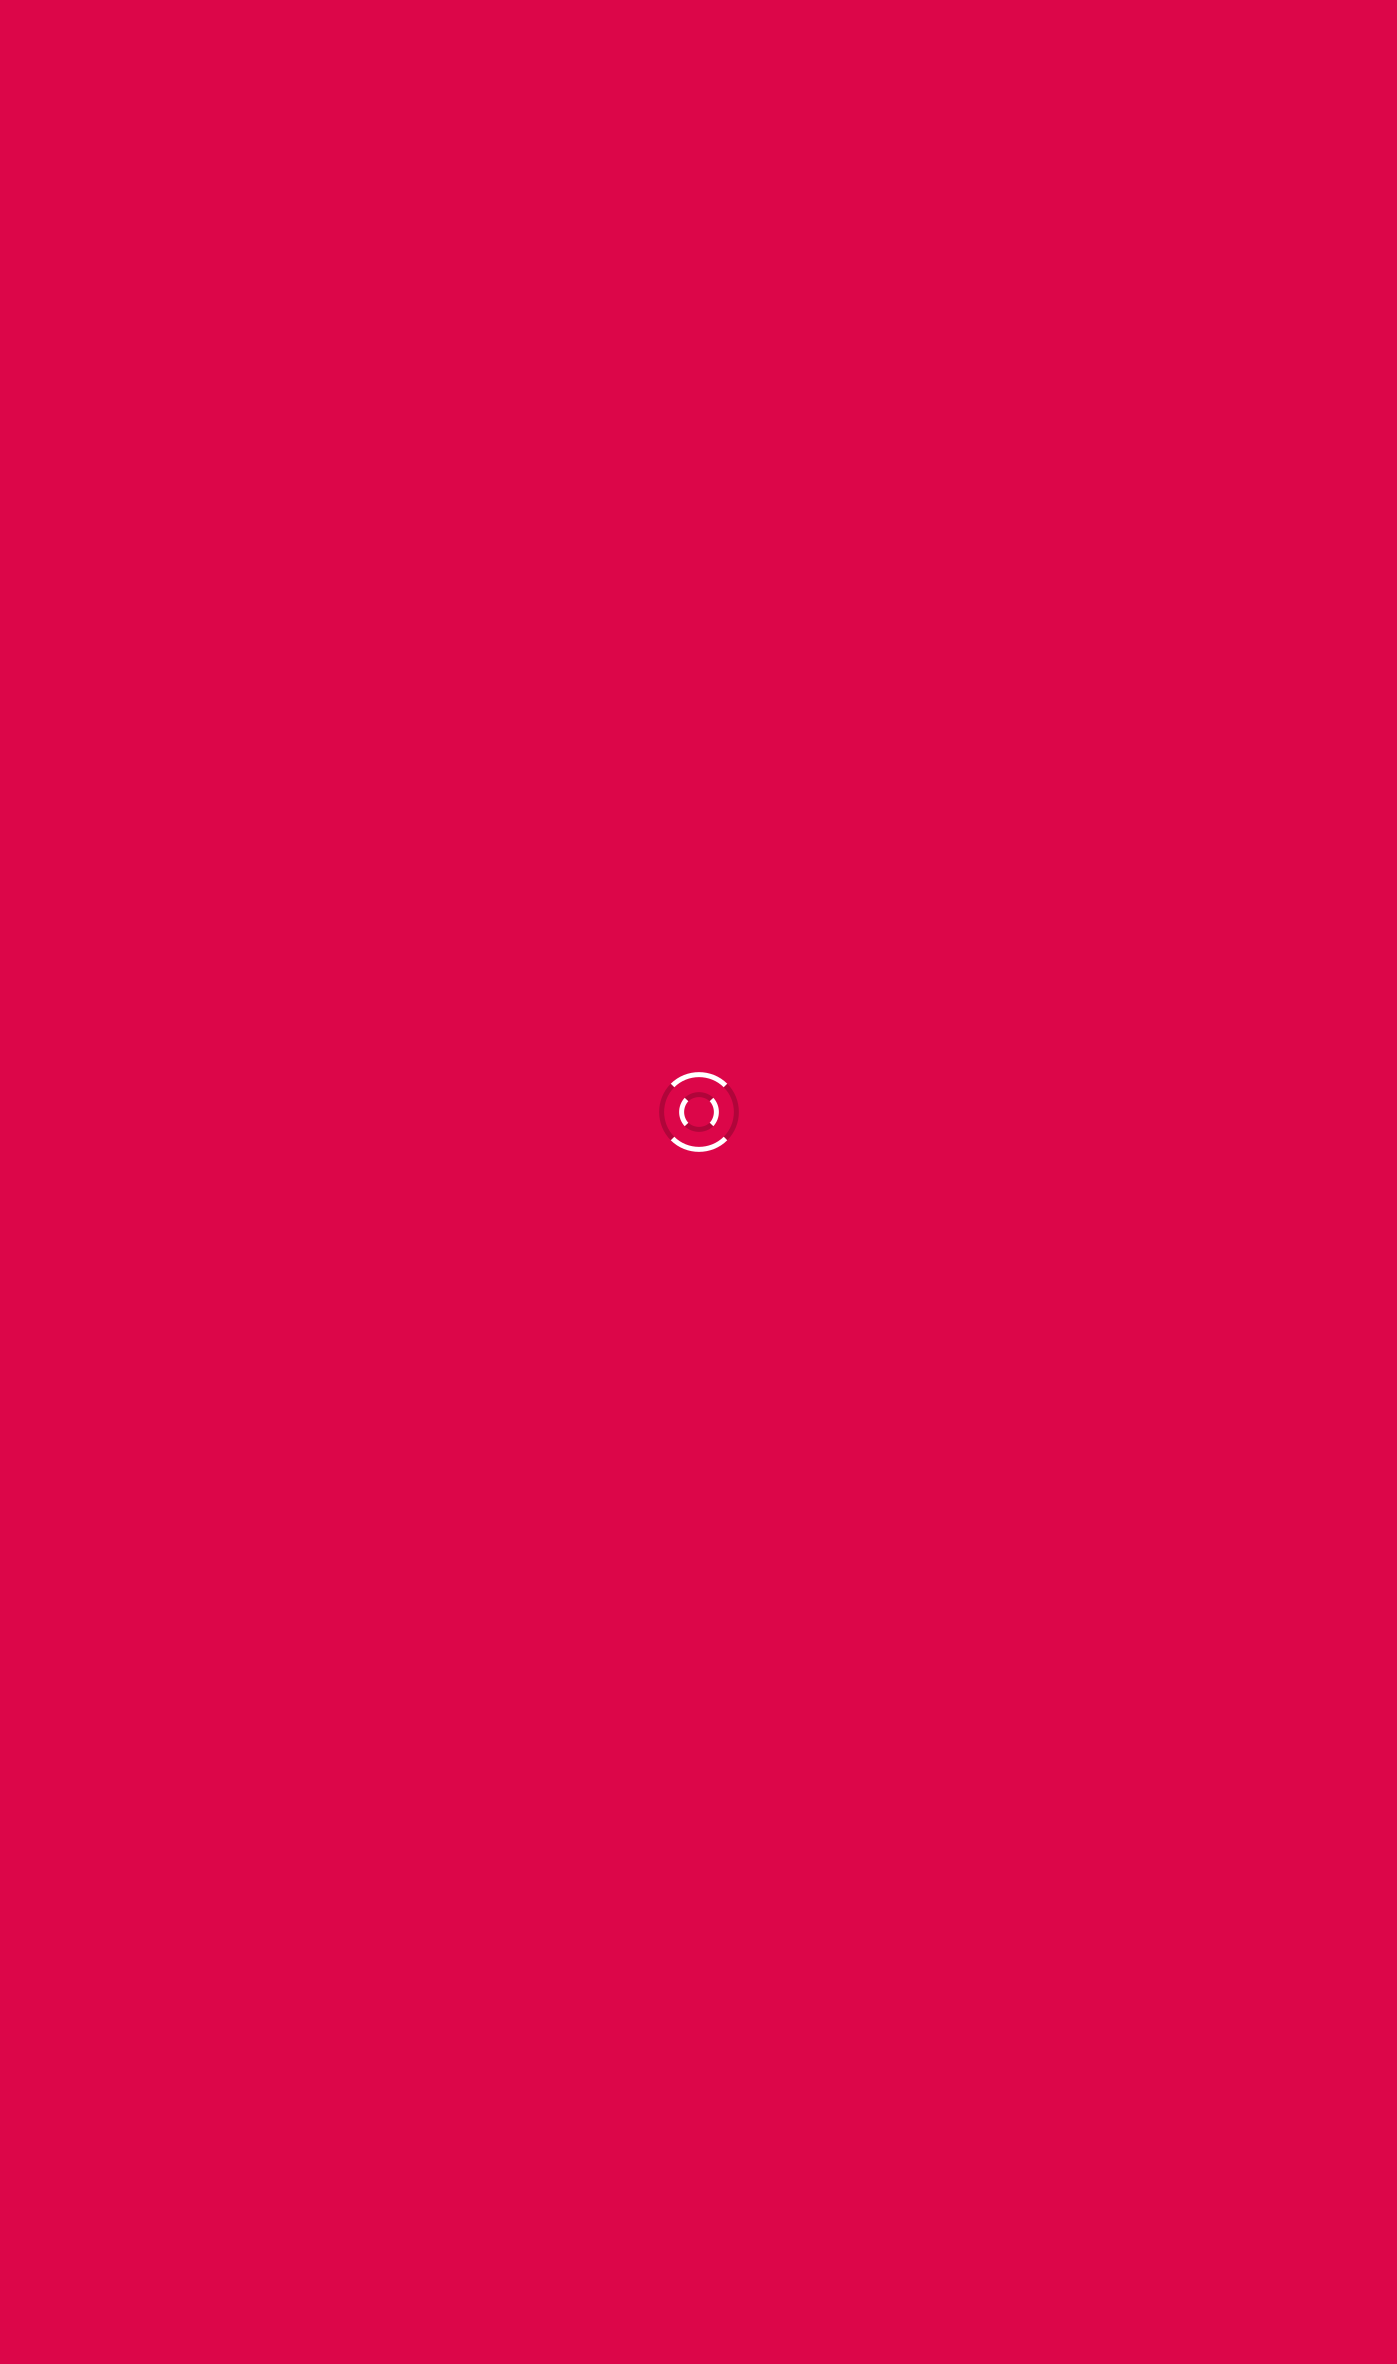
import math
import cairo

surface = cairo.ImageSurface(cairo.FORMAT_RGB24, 1397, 2364)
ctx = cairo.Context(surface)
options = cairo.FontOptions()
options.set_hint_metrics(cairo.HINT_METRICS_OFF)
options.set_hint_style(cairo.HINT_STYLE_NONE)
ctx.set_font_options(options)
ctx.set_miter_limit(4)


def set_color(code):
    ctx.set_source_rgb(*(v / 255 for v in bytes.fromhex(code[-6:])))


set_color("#dc0649")
ctx.paint()
ctx.new_path()
ctx.move_to(672.5, 1085.5)
ctx.curve_to(687, 1071, 711, 1071, 725.5, 1085.5)
set_color("#ffffff")
ctx.set_line_width(5)
ctx.stroke()
ctx.new_path()
ctx.move_to(725.5, 1085.5)
ctx.curve_to(740, 1100, 740, 1124, 725.5, 1138.5)
ctx.set_source_rgba(0, 0, 0, 0.2)
ctx.stroke()
ctx.new_path()
ctx.move_to(725.5, 1138.5)
ctx.curve_to(711, 1153, 687, 1153, 672.5, 1138.5)
set_color("#ffffff")
ctx.stroke()
ctx.new_path()
ctx.move_to(672.5, 1138.5)
ctx.curve_to(658, 1124, 658, 1100, 672.5, 1085.5)
ctx.set_source_rgba(0, 0, 0, 0.2)
ctx.stroke()
ctx.new_path()
ctx.move_to(686.5, 1099.5)
ctx.curve_to(693.5, 1093, 704.5, 1093, 711.5, 1099.5)
set_color("#b0053a")
ctx.stroke()
ctx.new_path()
ctx.move_to(711.5, 1099.5)
ctx.curve_to(718, 1106.5, 718, 1117.5, 711.5, 1124.5)
set_color("#ffffff")
ctx.stroke()
ctx.new_path()
ctx.move_to(711.5, 1124.5)
ctx.curve_to(704.5, 1131, 693.5, 1131, 686.5, 1124.5)
ctx.set_source_rgba(0, 0, 0, 0.2)
ctx.stroke()
ctx.new_path()
ctx.move_to(686.5, 1124.5)
ctx.curve_to(680, 1117.5, 680, 1106.5, 686.5, 1099.5)
set_color("#ffffff")
ctx.stroke()
surface.write_to_png("output.png")
